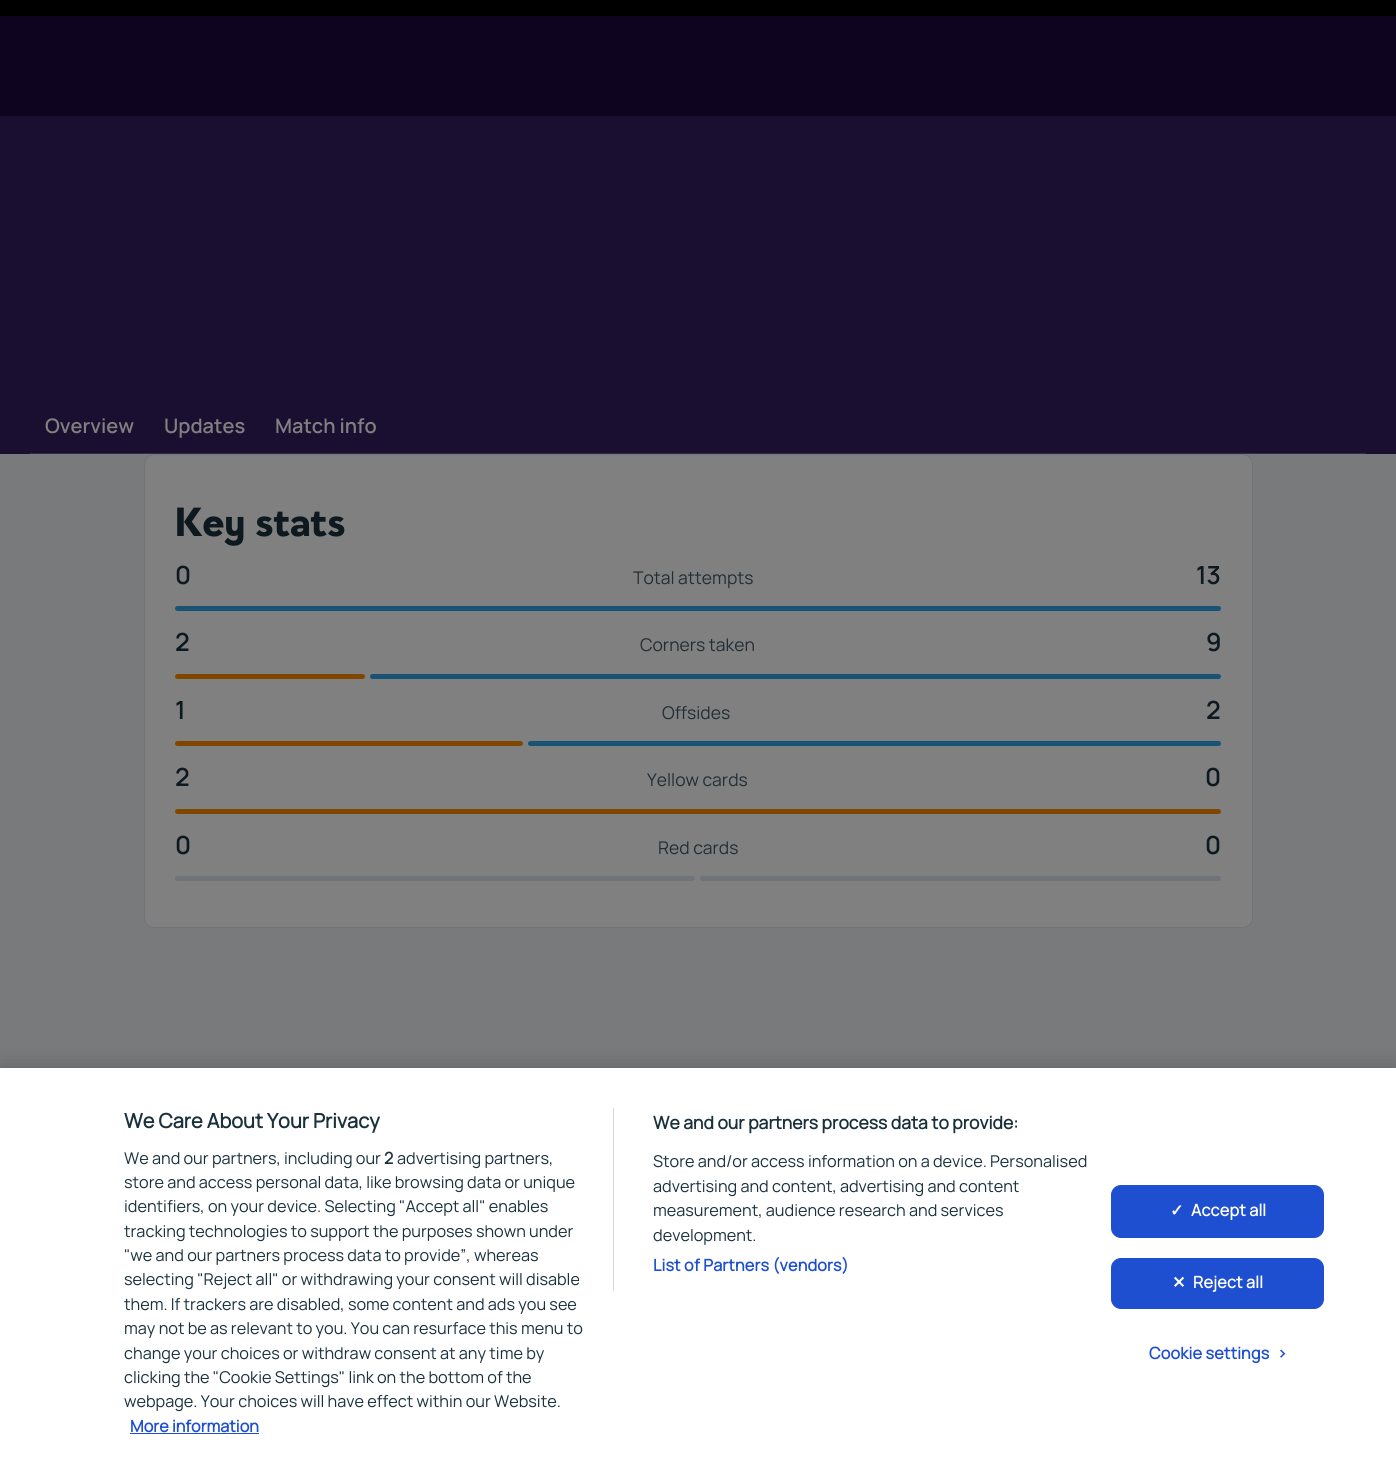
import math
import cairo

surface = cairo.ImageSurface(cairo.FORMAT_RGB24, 1396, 1467)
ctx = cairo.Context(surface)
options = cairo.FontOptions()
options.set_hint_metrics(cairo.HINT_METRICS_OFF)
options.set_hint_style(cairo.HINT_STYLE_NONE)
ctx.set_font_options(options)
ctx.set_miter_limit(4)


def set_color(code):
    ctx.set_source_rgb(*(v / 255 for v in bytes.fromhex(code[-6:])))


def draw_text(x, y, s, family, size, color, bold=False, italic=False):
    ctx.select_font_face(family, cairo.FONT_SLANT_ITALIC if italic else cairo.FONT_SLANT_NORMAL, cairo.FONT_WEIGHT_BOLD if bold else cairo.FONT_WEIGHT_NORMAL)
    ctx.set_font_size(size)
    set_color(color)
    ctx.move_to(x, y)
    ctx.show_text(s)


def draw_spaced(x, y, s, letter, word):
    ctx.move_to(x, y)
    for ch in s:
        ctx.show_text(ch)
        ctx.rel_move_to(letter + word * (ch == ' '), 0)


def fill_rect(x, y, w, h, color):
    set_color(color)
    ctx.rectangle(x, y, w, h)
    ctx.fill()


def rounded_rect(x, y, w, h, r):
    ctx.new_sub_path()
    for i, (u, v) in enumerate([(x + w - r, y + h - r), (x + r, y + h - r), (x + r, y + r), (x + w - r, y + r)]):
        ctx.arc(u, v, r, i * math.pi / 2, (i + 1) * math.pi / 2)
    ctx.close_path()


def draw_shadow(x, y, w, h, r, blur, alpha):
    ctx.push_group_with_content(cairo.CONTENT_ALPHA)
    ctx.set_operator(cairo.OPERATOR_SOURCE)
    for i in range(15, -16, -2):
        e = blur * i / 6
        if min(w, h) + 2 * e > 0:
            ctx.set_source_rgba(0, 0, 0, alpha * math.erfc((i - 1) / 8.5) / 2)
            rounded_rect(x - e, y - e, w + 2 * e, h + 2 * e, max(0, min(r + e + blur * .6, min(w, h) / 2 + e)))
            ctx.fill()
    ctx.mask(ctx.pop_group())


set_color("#797a7c")
ctx.paint()
fill_rect(0, 0, 1396, 16, "#000000")
fill_rect(0, 16, 1396, 100, "#0e0420")
fill_rect(0, 116, 1396, 338, "#1b0f31")
fill_rect(30, 453, 1336, 1, "#342b45")
draw_text(45, 433, "Overview", "Manrope SemiBold", 20, "#808080")
draw_text(164, 433, "Updates", "Manrope SemiBold", 20, "#808080")
draw_text(275, 433, "Match info", "Manrope SemiBold", 20, "#808080")
rounded_rect(144.5, 454.5, 1108, 473, 9.5)
ctx.fill_preserve()
set_color("#70737a")
ctx.set_line_width(1)
ctx.stroke()
draw_text(175, 536, "Key stats", "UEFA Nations", 40, "#0d191e", bold=True)
draw_text(175, 584, "0", "Manrope SemiBold", 25, "#0d191e")
draw_text(633, 584, "Total attempts", "Manrope", 17.5, "#232e34")
draw_text(1196, 584, "13", "Manrope SemiBold", 25, "#0d191e")
set_color("#185375")
rounded_rect(175, 606, 1046, 5, 2.5)
ctx.fill()
draw_text(175, 651, "2", "Manrope SemiBold", 25, "#0d191e")
draw_text(640, 651, "Corners taken", "Manrope", 17.5, "#232e34")
draw_text(1206, 651, "9", "Manrope SemiBold", 25, "#0d191e")
set_color("#804600")
rounded_rect(175, 674, 190, 5, 2.5)
ctx.fill()
set_color("#185375")
rounded_rect(370, 674, 851, 5, 2.5)
ctx.fill()
draw_text(175, 719, "1", "Manrope SemiBold", 25, "#0d191e")
draw_text(662, 719, "Offsides", "Manrope", 17.5, "#232e34")
draw_text(1206, 719, "2", "Manrope SemiBold", 25, "#0d191e")
set_color("#804600")
rounded_rect(175, 741, 348, 5, 2.5)
ctx.fill()
set_color("#185375")
rounded_rect(528, 741, 693, 5, 2.5)
ctx.fill()
draw_text(175, 786, "2", "Manrope SemiBold", 25, "#0d191e")
draw_text(647, 786, "Yellow cards", "Manrope", 17.5, "#232e34")
draw_text(1205, 786, "0", "Manrope SemiBold", 25, "#0d191e")
set_color("#804600")
rounded_rect(175, 809, 1046, 5, 2.5)
ctx.fill()
draw_text(175, 854, "0", "Manrope SemiBold", 25, "#0d191e")
draw_text(658, 854, "Red cards", "Manrope", 17.5, "#232e34")
draw_text(1205, 854, "0", "Manrope SemiBold", 25, "#0d191e")
set_color("#70737a")
rounded_rect(175, 876, 520, 5, 2.5)
ctx.fill()
rounded_rect(700, 876, 521, 5, 2.5)
ctx.fill()
set_color("#000000")
draw_shadow(0, 1068, 1396, 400, 0, 11, 0.2)
fill_rect(0, 1068, 1396, 399, "#ffffff")
draw_text(124, 1128, "We Care About Your Privacy", "Manrope", 20, "#1a313c", bold=True)
fill_rect(613, 1108, 1, 183, "#d8d8d8")
draw_text(653, 1129, "We and our partners process data to provide:", "Manrope", 17.6, "#1a313c", bold=True)
draw_text(653, 1167, "Store and/or access information on a device. Personalised", "Manrope", 16.25, "#1a313c")
draw_text(653, 1192, "advertising and content, advertising and content", "Manrope", 16.25, "#1a313c")
draw_text(653, 1216, "measurement, audience research and services", "Manrope", 16.25, "#1a313c")
draw_text(653, 1241, "development.", "Manrope", 16.25, "#1a313c")
ctx.select_font_face("Manrope", cairo.FONT_SLANT_NORMAL, cairo.FONT_WEIGHT_BOLD)
set_color("#1e4fd0")
draw_spaced(653, 1271, "List of Partners (vendors)", 0.15, 0)
draw_text(124, 1164, "We and our partners, including our", "Manrope", 16.25, "#1a313c")
draw_text(384, 1164, "2", "Manrope", 16.25, "#1a313c", bold=True)
draw_text(397, 1164, "advertising partners,", "Manrope", 16.25, "#1a313c")
draw_text(124, 1188, "store and access personal data, like browsing data or unique", "Manrope", 16.25, "#1a313c")
draw_text(124, 1212, "identifiers, on your device. Selecting \"Accept all\" enables", "Manrope", 16.25, "#1a313c")
draw_text(124, 1237, "tracking technologies to support the purposes shown under", "Manrope", 16.25, "#1a313c")
draw_text(124, 1261, "\"we and our partners process data to provide”, whereas", "Manrope", 16.25, "#1a313c")
draw_text(124, 1285, "selecting \"Reject all\" or withdrawing your consent will disable", "Manrope", 16.25, "#1a313c")
draw_text(124, 1310, "them. If trackers are disabled, some content and ads you see", "Manrope", 16.25, "#1a313c")
draw_text(124, 1334, "may not be as relevant to you. You can resurface this menu to", "Manrope", 16.25, "#1a313c")
draw_text(124, 1359, "change your choices or withdraw consent at any time by", "Manrope", 16.25, "#1a313c")
draw_text(124, 1383, "clicking the \"Cookie Settings\" link on the bottom of the", "Manrope", 16.25, "#1a313c")
draw_text(124, 1407, "webpage. Your choices will have effect within our Website.", "Manrope", 16.25, "#1a313c")
draw_text(130, 1432, "More information", "Manrope", 16.25, "#1e4fd0", bold=True)
fill_rect(130, 1433, 129, 1, "#1e4fd0")
rounded_rect(1111.5, 1185.5, 212, 52, 9.5)
ctx.fill_preserve()
ctx.stroke()
ctx.select_font_face("DejaVu Sans", cairo.FONT_SLANT_NORMAL, cairo.FONT_WEIGHT_BOLD)
set_color("#ffffff")
draw_spaced(1170, 1216, "✓", 0.15, 0)
ctx.select_font_face("Manrope", cairo.FONT_SLANT_NORMAL, cairo.FONT_WEIGHT_BOLD)
draw_spaced(1191, 1216, "Accept all", 0.15, 0)
set_color("#1e4fd0")
rounded_rect(1111.5, 1258.5, 212, 50, 9.5)
ctx.fill_preserve()
ctx.stroke()
ctx.select_font_face("DejaVu Sans", cairo.FONT_SLANT_NORMAL, cairo.FONT_WEIGHT_BOLD)
set_color("#ffffff")
draw_spaced(1172, 1288, "✕", 0.15, 0)
ctx.select_font_face("Manrope", cairo.FONT_SLANT_NORMAL, cairo.FONT_WEIGHT_BOLD)
draw_spaced(1193, 1288, "Reject all", 0.15, 0)
set_color("#1e4fd0")
draw_spaced(1149, 1359, "Cookie settings", 0.15, 0)
draw_spaced(1277, 1359, ">", 0.15, 0)
surface.write_to_png("output.png")
